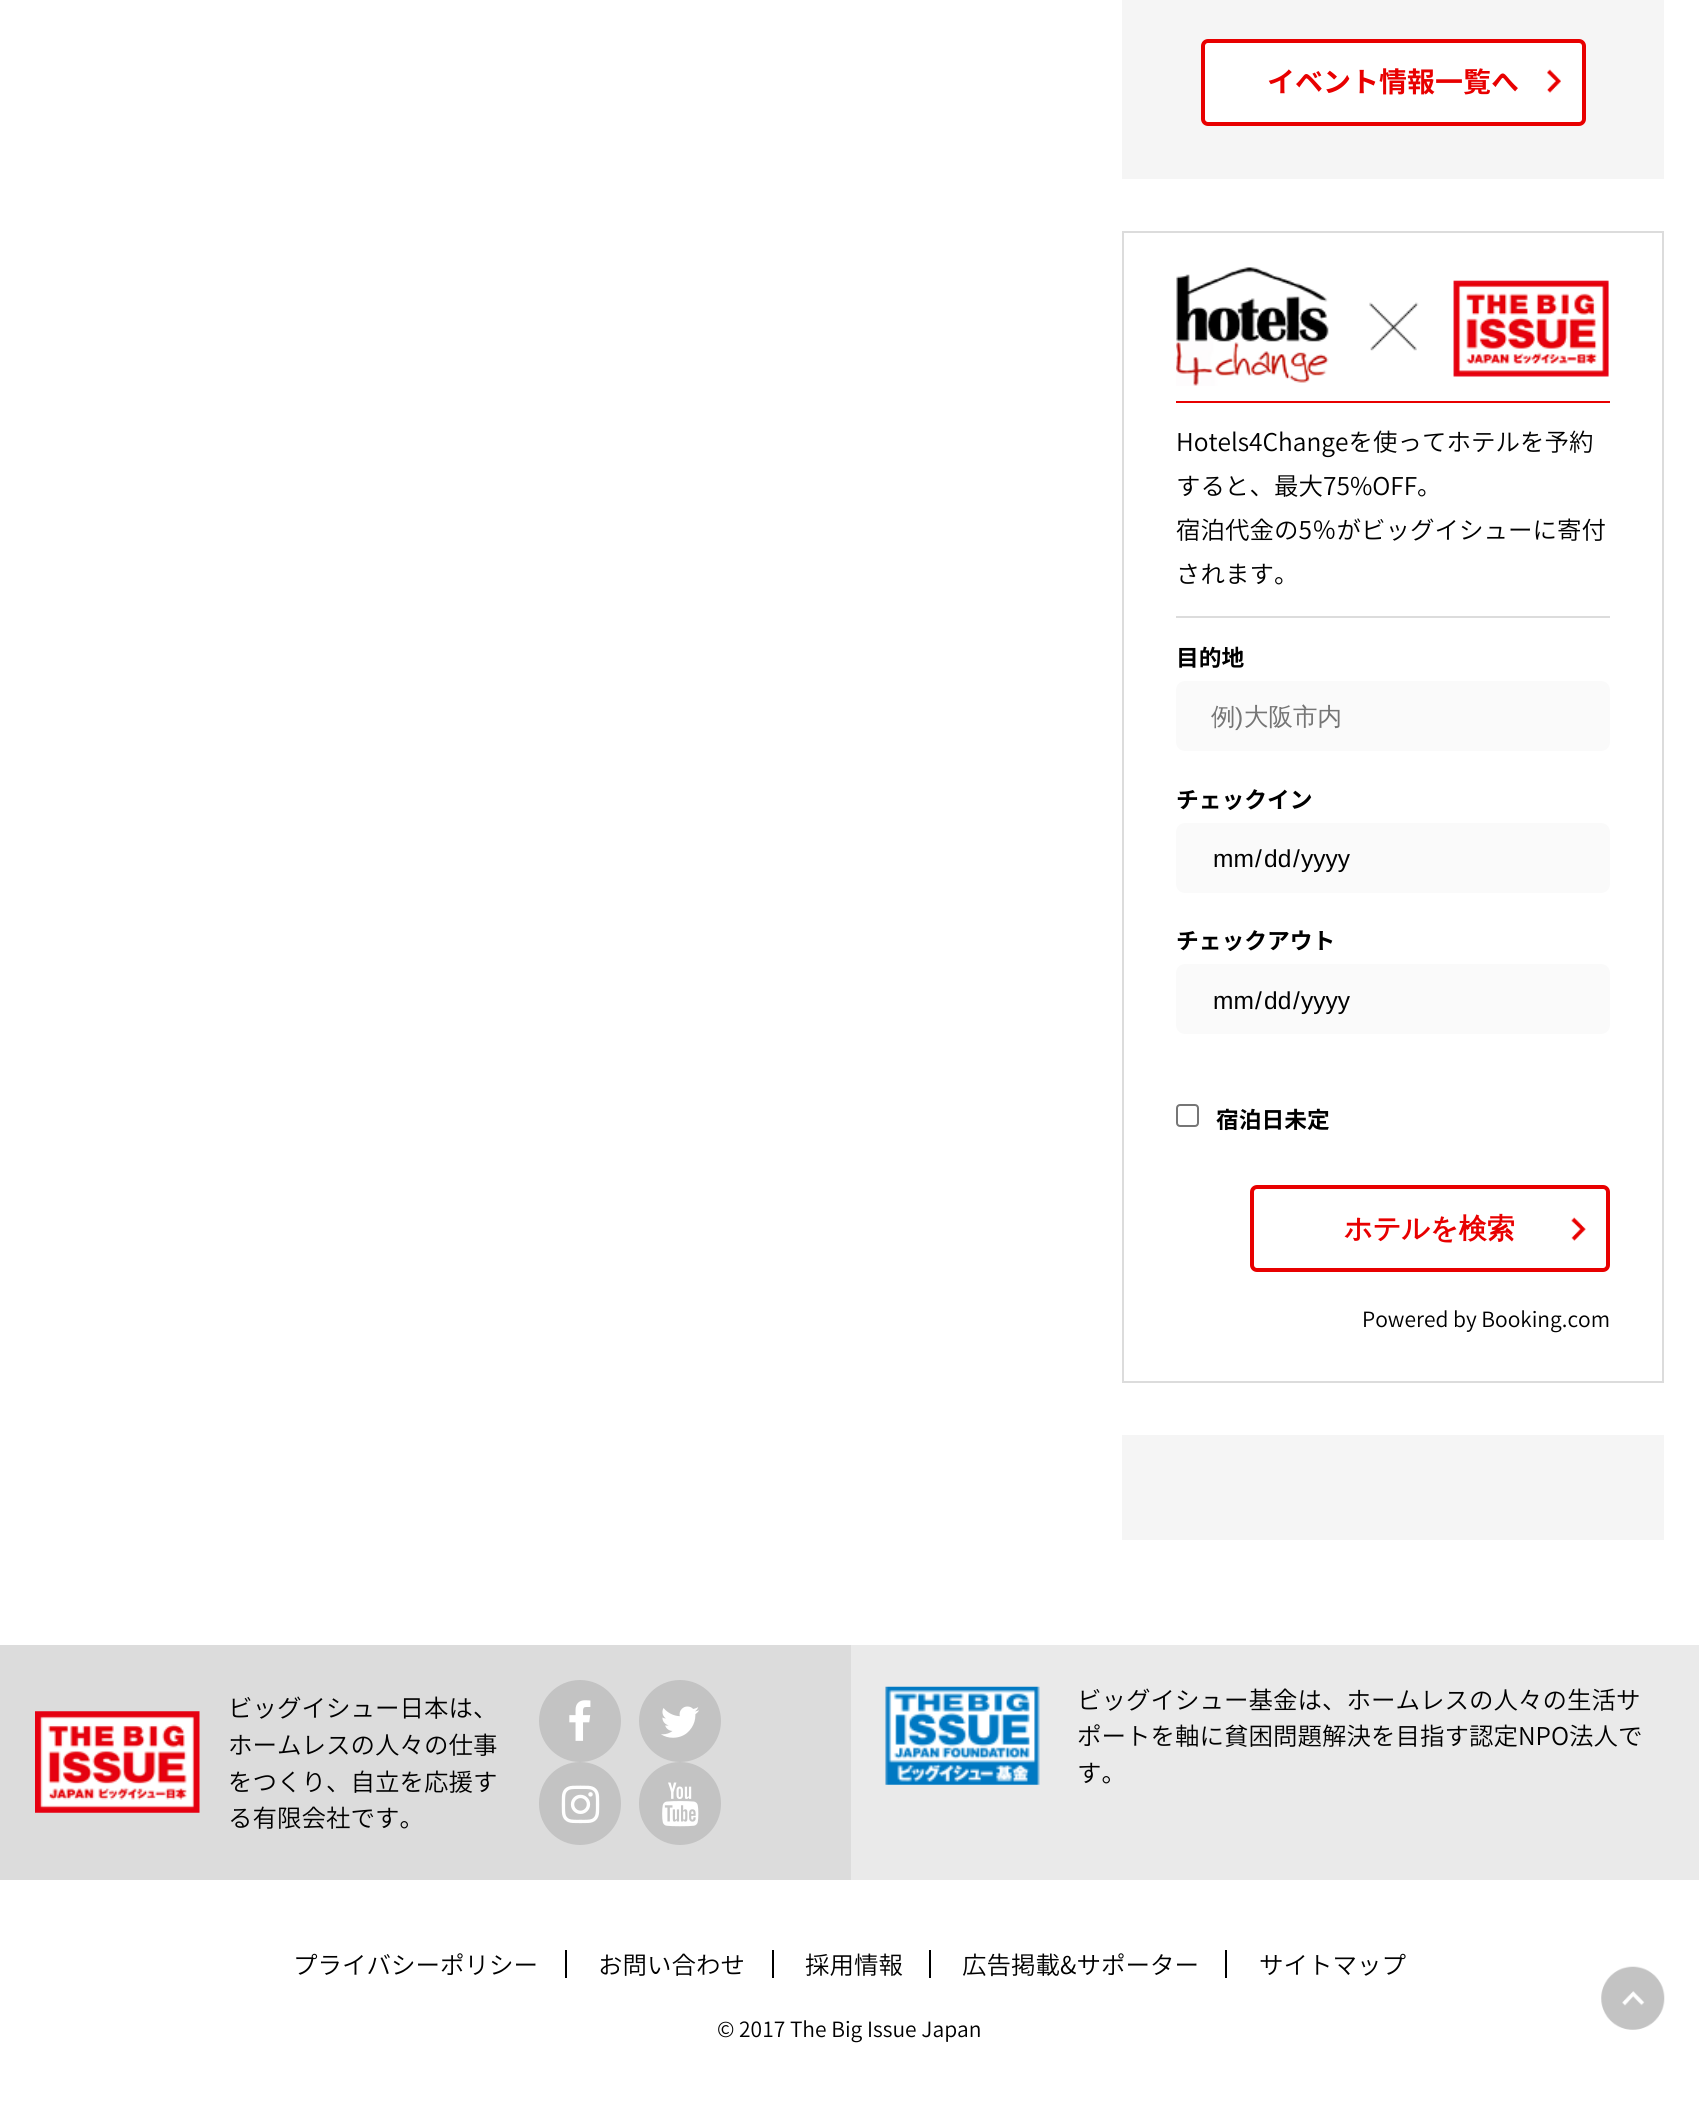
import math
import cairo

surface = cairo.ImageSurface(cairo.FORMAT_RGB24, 1699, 2114)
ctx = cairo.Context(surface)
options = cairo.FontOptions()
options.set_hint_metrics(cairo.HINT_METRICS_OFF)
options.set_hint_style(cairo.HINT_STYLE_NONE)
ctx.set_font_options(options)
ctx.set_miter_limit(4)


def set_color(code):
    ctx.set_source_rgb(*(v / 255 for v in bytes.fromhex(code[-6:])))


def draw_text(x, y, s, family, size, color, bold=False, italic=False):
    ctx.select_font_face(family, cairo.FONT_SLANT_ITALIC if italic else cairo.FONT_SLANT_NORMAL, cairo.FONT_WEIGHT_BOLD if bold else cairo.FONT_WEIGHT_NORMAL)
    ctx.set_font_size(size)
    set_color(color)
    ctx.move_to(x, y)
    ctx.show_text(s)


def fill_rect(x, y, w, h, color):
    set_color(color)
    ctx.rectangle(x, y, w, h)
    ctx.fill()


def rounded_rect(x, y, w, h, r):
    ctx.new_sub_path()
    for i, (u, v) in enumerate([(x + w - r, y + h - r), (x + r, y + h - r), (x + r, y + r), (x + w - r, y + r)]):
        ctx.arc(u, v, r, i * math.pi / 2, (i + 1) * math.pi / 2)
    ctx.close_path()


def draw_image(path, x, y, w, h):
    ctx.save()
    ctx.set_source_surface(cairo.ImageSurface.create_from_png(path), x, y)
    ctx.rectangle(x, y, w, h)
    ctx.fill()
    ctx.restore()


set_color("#ffffff")
ctx.paint()
fill_rect(1122, 0, 542, 179, "#f5f5f5")
set_color("#ffffff")
rounded_rect(1201, 39, 385, 87, 7)
ctx.fill()
draw_image("assets/img1.png", 1547, 69, 14, 24)
rounded_rect(1203, 41, 381, 83, 5)
set_color("#e80000")
ctx.set_line_width(4)
ctx.stroke()
draw_text(1267, 92, "イベント情報一覧へ", "Noto Sans JP", 28, "#e80000", bold=True)
ctx.rectangle(1123, 232, 540, 1150)
set_color("#dcdcdc")
ctx.set_line_width(2)
ctx.stroke()
fill_rect(1176, 401, 434, 2, "#e80000")
draw_image("assets/img2.png", 1176, 267, 433, 119)
draw_text(1176, 451, "Hotels4Changeを使ってホテルを予約", "Noto Sans JP Light", 24.5, "#000000")
draw_text(1176, 495, "すると、最大75%OFF。", "Noto Sans JP Light", 24.5, "#000000")
draw_text(1176, 539, "宿泊代金の5％がビッグイシューに寄付", "Noto Sans JP Light", 24.5, "#000000")
draw_text(1176, 583, "されます。", "Noto Sans JP Light", 24.5, "#000000")
fill_rect(1176, 616, 434, 2, "#dcdcdc")
draw_text(1176, 666, "目的地", "Noto Sans JP", 22.75, "#000000", bold=True)
set_color("#fafafa")
rounded_rect(1176, 681, 434, 70, 9)
ctx.fill()
draw_text(1211, 725, "例", "WenQuanYi Zen Hei Medium", 24.5, "#757575")
draw_text(1235, 725, ")", "Liberation Sans", 24.5, "#757575")
draw_text(1244, 725, "大阪市内", "WenQuanYi Zen Hei Medium", 24.5, "#757575")
draw_text(1176, 808, "チェックイン", "Noto Sans JP", 22.75, "#000000", bold=True)
set_color("#fafafa")
rounded_rect(1176, 823, 434, 70, 9)
ctx.fill()
draw_text(1213, 867, "mm", "Liberation Sans", 24.5, "#000000")
draw_text(1255, 867, "/", "Liberation Sans", 24.5, "#000000")
draw_text(1264, 867, "dd", "Liberation Sans", 24.5, "#000000")
draw_text(1293, 867, "/", "Liberation Sans", 24.5, "#000000")
draw_text(1301, 867, "yyyy", "Liberation Sans", 24.5, "#000000")
draw_text(1176, 949, "チェックアウト", "Noto Sans JP", 22.75, "#000000", bold=True)
set_color("#fafafa")
rounded_rect(1176, 964, 434, 70, 9)
ctx.fill()
draw_text(1213, 1009, "mm", "Liberation Sans", 24.5, "#000000")
draw_text(1255, 1009, "/", "Liberation Sans", 24.5, "#000000")
draw_text(1264, 1009, "dd", "Liberation Sans", 24.5, "#000000")
draw_text(1293, 1009, "/", "Liberation Sans", 24.5, "#000000")
draw_text(1301, 1009, "yyyy", "Liberation Sans", 24.5, "#000000")
rounded_rect(1177, 1105, 21, 21, 3)
set_color("#767676")
ctx.stroke()
draw_text(1216, 1128, "宿泊日未定", "Noto Sans JP", 22.75, "#000000", bold=True)
draw_image("assets/img3.png", 1571, 1217, 15, 24)
rounded_rect(1252, 1187, 356, 83, 5)
set_color("#e80000")
ctx.set_line_width(4)
ctx.stroke()
draw_text(1344, 1238, "ホテルを検索", "WenQuanYi Zen Hei", 28, "#e80000", bold=True)
draw_text(1362, 1327, "Powered by Booking.com", "Noto Sans JP Light", 21, "#000000")
fill_rect(1122, 1435, 542, 105, "#f5f5f5")
fill_rect(0, 1645, 851, 235, "#dcdcdc")
draw_image("assets/img4.png", 35, 1711, 165, 102)
draw_text(228, 1717, "ビッグイシュー日本は、", "Noto Sans JP Light", 24.5, "#000000")
draw_text(228, 1754, "ホームレスの人々の仕事", "Noto Sans JP Light", 24.5, "#000000")
draw_text(228, 1791, "をつくり、自立を応援す", "Noto Sans JP Light", 24.5, "#000000")
draw_text(228, 1827, "る有限会社です。", "Noto Sans JP Light", 24.5, "#000000")
set_color("#c3c3c3")
ctx.new_path()
ctx.arc(580, 1721, 41, 0, 2 * math.pi)
ctx.fill()
draw_image("assets/img5.png", 569, 1700, 22, 41)
ctx.arc(680, 1721, 41, 0, 2 * math.pi)
ctx.fill()
draw_image("assets/img6.png", 661, 1706, 38, 32)
rounded_rect(539, 1762, 82, 83, 41)
ctx.fill()
draw_image("assets/img7.png", 561, 1785, 39, 39)
rounded_rect(639, 1762, 82, 83, 41)
ctx.fill()
draw_image("assets/img8.png", 662, 1782, 37, 45)
fill_rect(851, 1645, 848, 235, "#eaeaea")
draw_image("assets/img9.png", 885, 1686, 155, 99)
draw_text(1077, 1709, "ビッグイシュー基金は、ホームレスの人々の生活サ", "Noto Sans JP Light", 24.5, "#000000")
draw_text(1077, 1745, "ポートを軸に貧困問題解決を目指す認定NPO法人で", "Noto Sans JP Light", 24.5, "#000000")
draw_text(1077, 1782, "す。", "Noto Sans JP Light", 24.5, "#000000")
fill_rect(565, 1950, 2, 28, "#000000")
draw_text(293, 1974, "プライバシーポリシー", "Noto Sans JP Light", 24.5, "#000000")
fill_rect(772, 1950, 2, 28, "#000000")
draw_text(598, 1974, "お問い合わせ", "Noto Sans JP Light", 24.5, "#000000")
fill_rect(929, 1950, 2, 28, "#000000")
draw_text(805, 1974, "採用情報", "Noto Sans JP Light", 24.5, "#000000")
fill_rect(1225, 1950, 2, 28, "#000000")
draw_text(962, 1974, "広告掲載&サポーター", "Noto Sans JP Light", 24.5, "#000000")
draw_text(1259, 1974, "サイトマップ", "Noto Sans JP Light", 24.5, "#000000")
draw_image("assets/img10.png", 1601, 1966, 64, 64)
draw_text(717, 2037, "© 2017 The Big Issue Japan", "Noto Sans JP Light", 21, "#000000")
surface.write_to_png("output.png")
